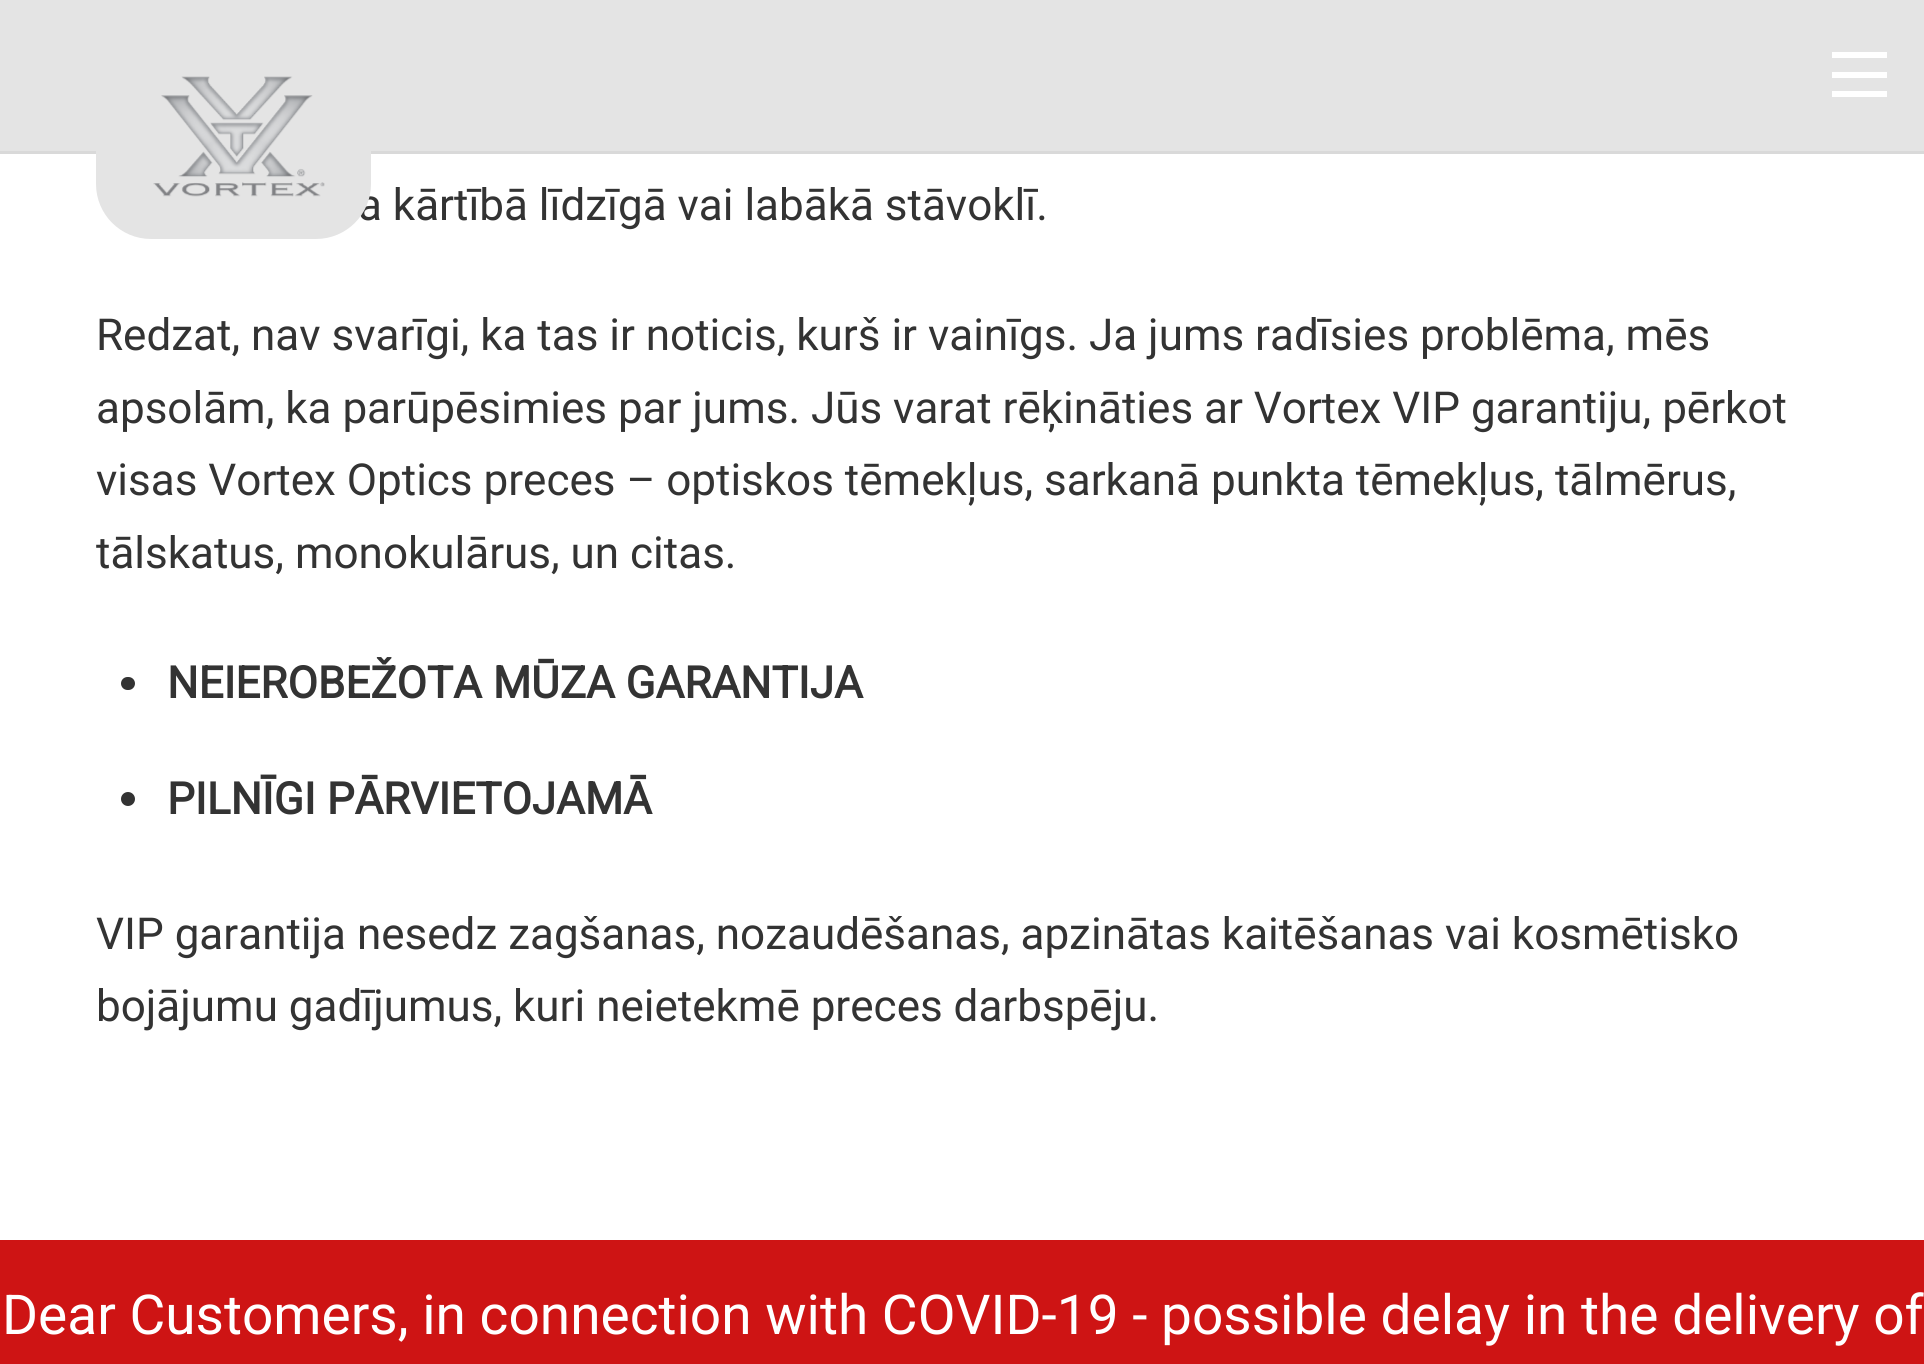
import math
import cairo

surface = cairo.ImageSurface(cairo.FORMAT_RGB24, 1924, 1364)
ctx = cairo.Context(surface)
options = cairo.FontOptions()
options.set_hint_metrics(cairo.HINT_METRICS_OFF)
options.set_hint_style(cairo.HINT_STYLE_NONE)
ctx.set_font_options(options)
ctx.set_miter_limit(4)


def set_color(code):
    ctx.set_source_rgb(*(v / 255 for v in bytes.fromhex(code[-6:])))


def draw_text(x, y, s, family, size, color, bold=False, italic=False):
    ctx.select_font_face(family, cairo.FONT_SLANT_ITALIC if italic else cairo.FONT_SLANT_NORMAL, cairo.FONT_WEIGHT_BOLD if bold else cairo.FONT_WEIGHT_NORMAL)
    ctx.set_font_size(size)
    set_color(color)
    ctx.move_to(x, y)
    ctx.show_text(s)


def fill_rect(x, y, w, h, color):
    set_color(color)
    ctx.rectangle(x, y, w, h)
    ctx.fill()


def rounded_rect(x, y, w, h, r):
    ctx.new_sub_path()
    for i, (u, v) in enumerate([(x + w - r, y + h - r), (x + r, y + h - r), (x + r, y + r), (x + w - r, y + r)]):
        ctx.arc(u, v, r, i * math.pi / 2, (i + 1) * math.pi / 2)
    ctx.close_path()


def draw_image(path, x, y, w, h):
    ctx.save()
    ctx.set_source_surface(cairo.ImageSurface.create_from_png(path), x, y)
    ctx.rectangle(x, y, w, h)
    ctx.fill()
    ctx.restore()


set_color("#ffffff")
ctx.paint()
fill_rect(0, 0, 1924, 151, "#e4e4e4")
fill_rect(0, 151, 1924, 3, "#d9d9d9")
draw_text(358, 220, "a kārtībā līdzīgā vai labākā stāvoklī.", "Roboto", 44, "#333333")
set_color("#e4e4e4")
rounded_rect(96, 41, 275, 198, 55)
ctx.fill()
draw_image("assets/img1.png", 153, 76, 172, 121)
fill_rect(1832, 91, 55, 6, "#ffffff")
fill_rect(1832, 52, 55, 6, "#ffffff")
fill_rect(1832, 72, 55, 6, "#ffffff")
draw_text(96, 350, "Redzat, nav svarīgi, ka tas ir noticis, kurš ir vainīgs. Ja jums radīsies problēma, mēs", "Roboto", 44, "#333333")
draw_text(96, 423, "apsolām, ka parūpēsimies par jums. Jūs varat rēķināties ar Vortex VIP garantiju, pērkot", "Roboto", 44, "#333333")
draw_text(96, 495, "visas Vortex Optics preces – optiskos tēmekļus, sarkanā punkta tēmekļus, tālmērus,", "Roboto", 44, "#333333")
draw_text(96, 568, "tālskatus, monokulārus, un citas.", "Roboto", 44, "#333333")
rounded_rect(121, 677, 14, 13, 6.5)
ctx.fill()
draw_text(167, 698, "NEIEROBEŽOTA MŪZA GARANTIJA", "Roboto", 44, "#333333", bold=True)
ctx.new_path()
ctx.arc(128, 799, 7, 0, 2 * math.pi)
ctx.fill()
draw_text(167, 814, "PILNĪGI PĀRVIETOJAMĀ", "Roboto", 44, "#333333", bold=True)
draw_text(96, 949, "VIP garantija nesedz zagšanas, nozaudēšanas, apzinātas kaitēšanas vai kosmētisko", "Roboto", 44, "#333333")
draw_text(96, 1021, "bojājumu gadījumus, kuri neietekmē preces darbspēju.", "Roboto", 44, "#333333")
fill_rect(0, 1240, 1924, 124, "#ce1414")
draw_text(2, 1334, "Dear Customers, in connection with COVID-19 - possible delay in the delivery of", "Roboto", 55, "#ffffff")
surface.write_to_png("output.png")
